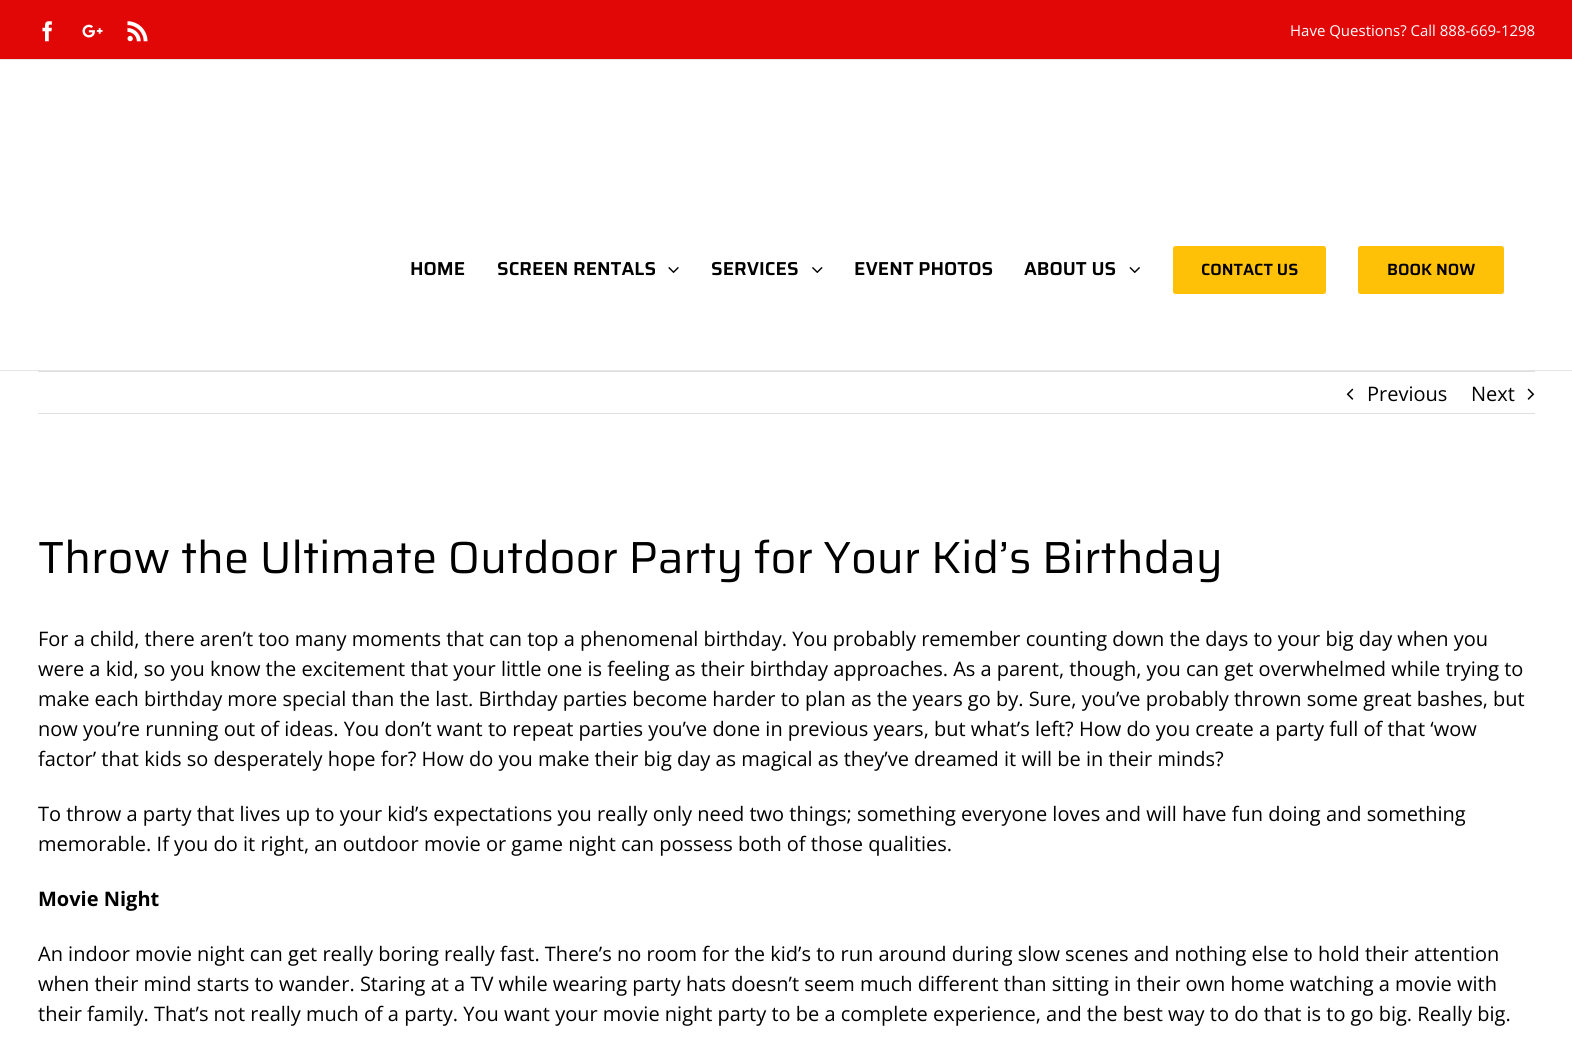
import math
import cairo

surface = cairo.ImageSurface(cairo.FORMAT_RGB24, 1572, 1045)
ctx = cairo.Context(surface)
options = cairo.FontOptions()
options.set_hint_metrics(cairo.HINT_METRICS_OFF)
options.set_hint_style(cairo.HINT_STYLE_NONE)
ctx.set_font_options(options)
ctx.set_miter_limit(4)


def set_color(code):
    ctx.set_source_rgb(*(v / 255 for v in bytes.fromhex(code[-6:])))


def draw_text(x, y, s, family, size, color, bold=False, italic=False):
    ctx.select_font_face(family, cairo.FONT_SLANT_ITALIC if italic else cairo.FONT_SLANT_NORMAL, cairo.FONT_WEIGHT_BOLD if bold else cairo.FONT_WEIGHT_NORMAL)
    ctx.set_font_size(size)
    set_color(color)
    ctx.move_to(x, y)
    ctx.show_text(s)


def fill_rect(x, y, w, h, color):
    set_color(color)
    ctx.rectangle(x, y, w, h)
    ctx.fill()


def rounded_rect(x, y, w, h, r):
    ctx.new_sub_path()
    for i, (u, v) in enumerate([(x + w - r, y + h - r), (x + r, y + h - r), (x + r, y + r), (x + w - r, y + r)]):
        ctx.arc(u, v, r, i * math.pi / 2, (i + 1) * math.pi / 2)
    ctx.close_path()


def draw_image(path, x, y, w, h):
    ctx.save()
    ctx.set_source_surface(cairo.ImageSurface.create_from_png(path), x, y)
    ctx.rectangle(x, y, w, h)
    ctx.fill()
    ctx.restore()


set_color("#ffffff")
ctx.paint()
fill_rect(0, 0, 1572, 59, "#e10707")
fill_rect(0, 59, 1572, 1, "#e5e5e5")
draw_image("assets/img1.png", 42, 21, 10, 21)
draw_image("assets/img2.png", 82, 24, 21, 14)
draw_image("assets/img3.png", 127, 21, 21, 21)
draw_text(1290, 36, "Have Questions? Call 888-669-1298", "Open Sans", 15, "#ffffff")
fill_rect(0, 370, 1572, 1, "#e5e5e5")
draw_text(410, 275, "HOME", "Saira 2 Thin", 18.75, "#000000")
draw_text(497, 275, "SCREEN RENTALS", "Saira 2 Thin", 18.75, "#000000")
draw_image("assets/img4.png", 668, 267, 11, 6)
draw_text(711, 275, "SERVICES", "Saira 2 Thin", 18.75, "#000000")
draw_image("assets/img5.png", 812, 267, 11, 6)
draw_text(854, 275, "EVENT PHOTOS", "Saira 2 Thin", 18.75, "#000000")
draw_text(1024, 275, "ABOUT US", "Saira 2 Thin", 18.75, "#000000")
draw_image("assets/img6.png", 1129, 267, 11, 6)
set_color("#ffc107")
rounded_rect(1173, 246, 153, 48, 2.5)
ctx.fill()
draw_text(1201, 275, "CONTACT US", "Saira 2 Thin", 16.25, "#000000")
set_color("#ffc107")
rounded_rect(1358, 246, 146, 48, 2.5)
ctx.fill()
draw_text(1387, 275, "BOOK NOW", "Saira 2 Thin", 16.25, "#000000")
fill_rect(38, 371, 1497, 1, "#e0dede")
fill_rect(38, 413, 1497, 1, "#e0dede")
draw_image("assets/img7.png", 1346, 388, 8, 12)
draw_text(1367, 401, "Previous", "Open Sans", 20, "#000000")
draw_text(1471, 401, "Next", "Open Sans", 20, "#000000")
draw_image("assets/img8.png", 1527, 388, 8, 12)
draw_text(38, 573, "Throw the Ultimate Outdoor Party for Your Kid’s Birthday", "Saira Thin", 45, "#000000")
draw_text(38, 646, "For a child, there aren’t too many moments that can top a phenomenal birthday. You probably remember counting down the days to your big day when you", "Open Sans", 20, "#000000")
draw_text(38, 676, "were a kid, so you know the excitement that your little one is feeling as their birthday approaches. As a parent, though, you can get overwhelmed while trying to", "Open Sans", 20, "#000000")
draw_text(38, 706, "make each birthday more special than the last. Birthday parties become harder to plan as the years go by. Sure, you’ve probably thrown some great bashes, but", "Open Sans", 20, "#000000")
draw_text(38, 736, "now you’re running out of ideas. You don’t want to repeat parties you’ve done in previous years, but what’s left? How do you create a party full of that ‘wow", "Open Sans", 20, "#000000")
draw_text(38, 766, "factor’ that kids so desperately hope for? How do you make their big day as magical as they’ve dreamed it will be in their minds?", "Open Sans", 20, "#000000")
draw_text(38, 821, "To throw a party that lives up to your kid’s expectations you really only need two things; something everyone loves and will have fun doing and something", "Open Sans", 20, "#000000")
draw_text(38, 851, "memorable. If you do it right, an outdoor movie or game night can possess both of those qualities.", "Open Sans", 20, "#000000")
draw_text(38, 906, "Movie Night", "Open Sans", 20, "#000000", bold=True)
draw_text(38, 961, "An indoor movie night can get really boring really fast. There’s no room for the kid’s to run around during slow scenes and nothing else to hold their attention", "Open Sans", 20, "#000000")
draw_text(38, 991, "when their mind starts to wander. Staring at a TV while wearing party hats doesn’t seem much different than sitting in their own home watching a movie with", "Open Sans", 20, "#000000")
draw_text(38, 1021, "their family. That’s not really much of a party. You want your movie night party to be a complete experience, and the best way to do that is to go big. Really big.", "Open Sans", 20, "#000000")
surface.write_to_png("output.png")
